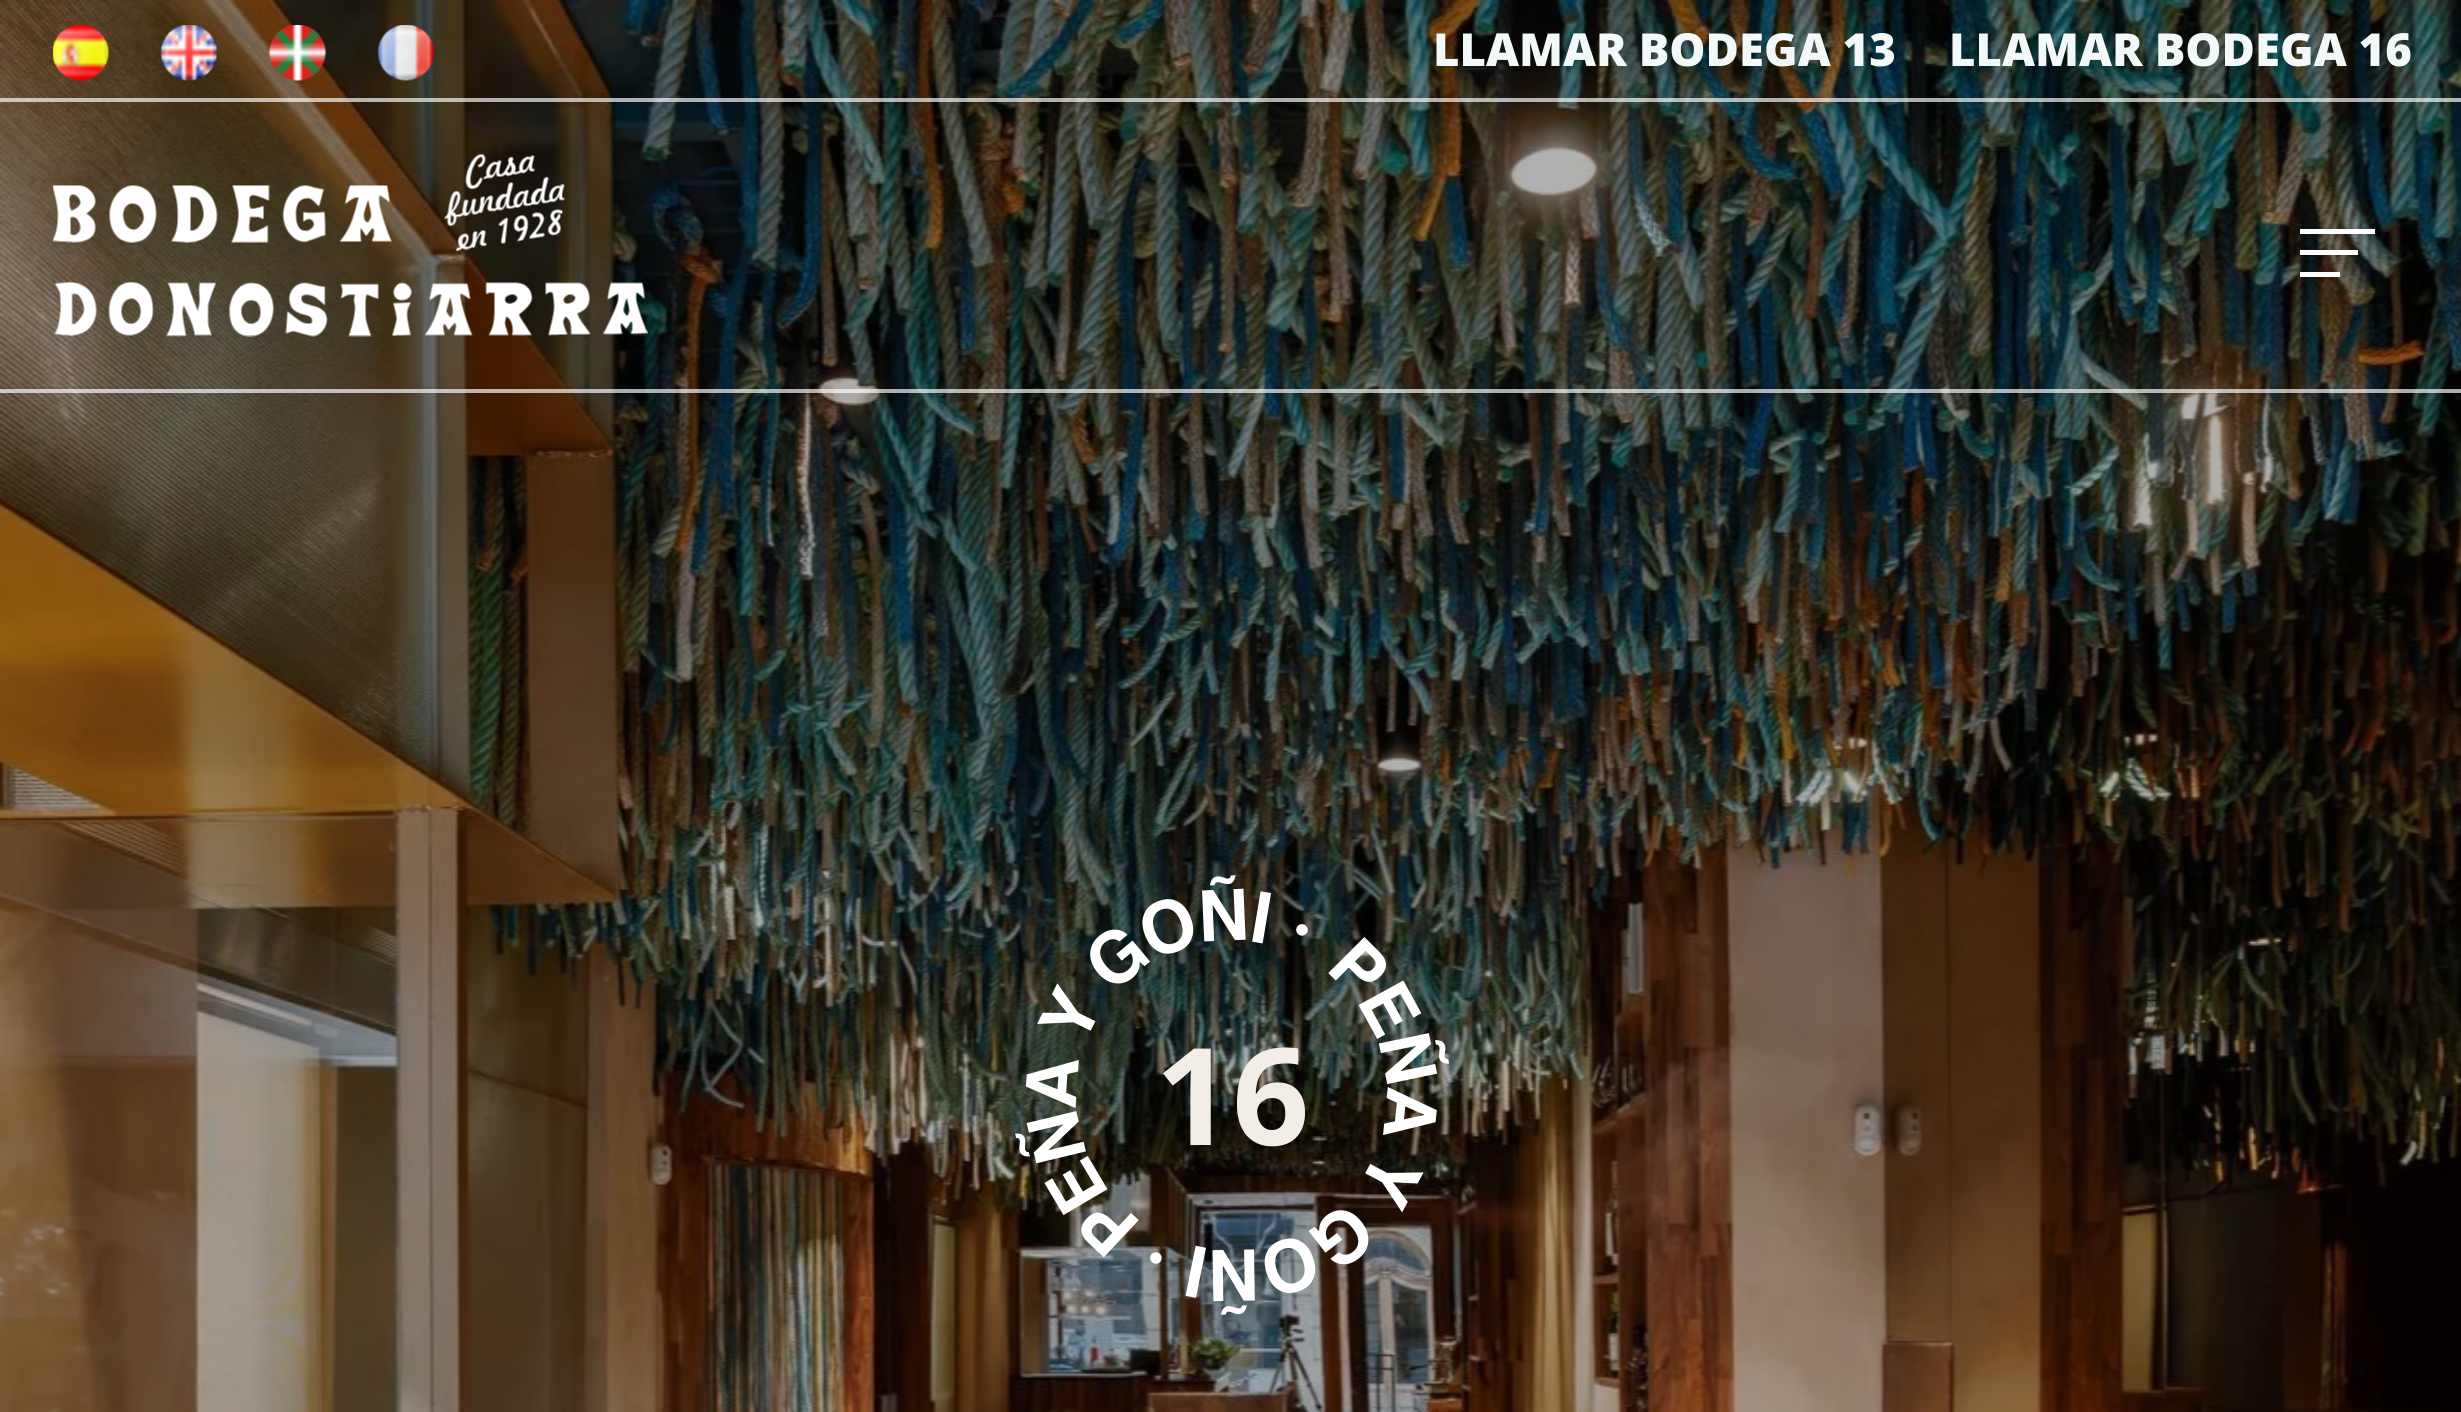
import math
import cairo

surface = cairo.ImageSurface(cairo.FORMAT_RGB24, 2461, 1412)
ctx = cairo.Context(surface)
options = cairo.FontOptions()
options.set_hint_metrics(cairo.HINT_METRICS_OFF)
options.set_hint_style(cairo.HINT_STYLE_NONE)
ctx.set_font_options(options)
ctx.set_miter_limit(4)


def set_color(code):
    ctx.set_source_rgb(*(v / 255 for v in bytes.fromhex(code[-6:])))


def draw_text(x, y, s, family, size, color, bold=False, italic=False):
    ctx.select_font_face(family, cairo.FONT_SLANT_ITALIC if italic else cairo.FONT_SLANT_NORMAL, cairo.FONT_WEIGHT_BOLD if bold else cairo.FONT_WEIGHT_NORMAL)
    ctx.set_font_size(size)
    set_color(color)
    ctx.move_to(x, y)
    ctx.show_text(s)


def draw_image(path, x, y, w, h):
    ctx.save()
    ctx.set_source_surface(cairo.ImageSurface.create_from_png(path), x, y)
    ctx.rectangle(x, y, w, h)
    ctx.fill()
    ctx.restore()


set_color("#ffffff")
ctx.paint()
draw_image("assets/img6.png", 0, 0, 2461, 1412)
ctx.set_source_rgba(1, 1, 1, 0.67)
ctx.rectangle(0, 98, 2461, 4)
ctx.fill()
draw_image("assets/img1.png", 53, 25, 56, 56)
draw_image("assets/img2.png", 160, 25, 58, 56)
draw_image("assets/img3.png", 269, 25, 57, 56)
draw_image("assets/img4.png", 377, 25, 58, 56)
draw_text(1433, 66, "LLAMAR BODEGA 13", "Noto Sans Black", 45.5, "#f3f9f9")
draw_text(1949, 66, "LLAMAR BODEGA 16", "Noto Sans Black", 45.5, "#f3f9f9")
ctx.set_source_rgba(1, 1, 1, 0.67)
ctx.rectangle(0, 389, 2461, 4)
ctx.fill()
draw_image("assets/img5.png", 53, 154, 595, 183)
set_color("#ffffff")
ctx.new_path()
ctx.move_to(2300, 229)
ctx.line_to(2375, 229)
ctx.line_to(2375, 234)
ctx.line_to(2300, 234)
ctx.close_path()
ctx.move_to(2300, 250)
ctx.line_to(2358, 250)
ctx.line_to(2358, 255)
ctx.line_to(2300, 255)
ctx.close_path()
ctx.move_to(2300, 272)
ctx.line_to(2340, 272)
ctx.line_to(2340, 277)
ctx.line_to(2300, 277)
ctx.close_path()
ctx.fill()
draw_image("assets/img7.png", 1015, 875, 434, 440)
draw_text(1155, 1145, "16", "Noto Sans", 135, "#f2ede6", bold=True)
surface.write_to_png("output.png")
